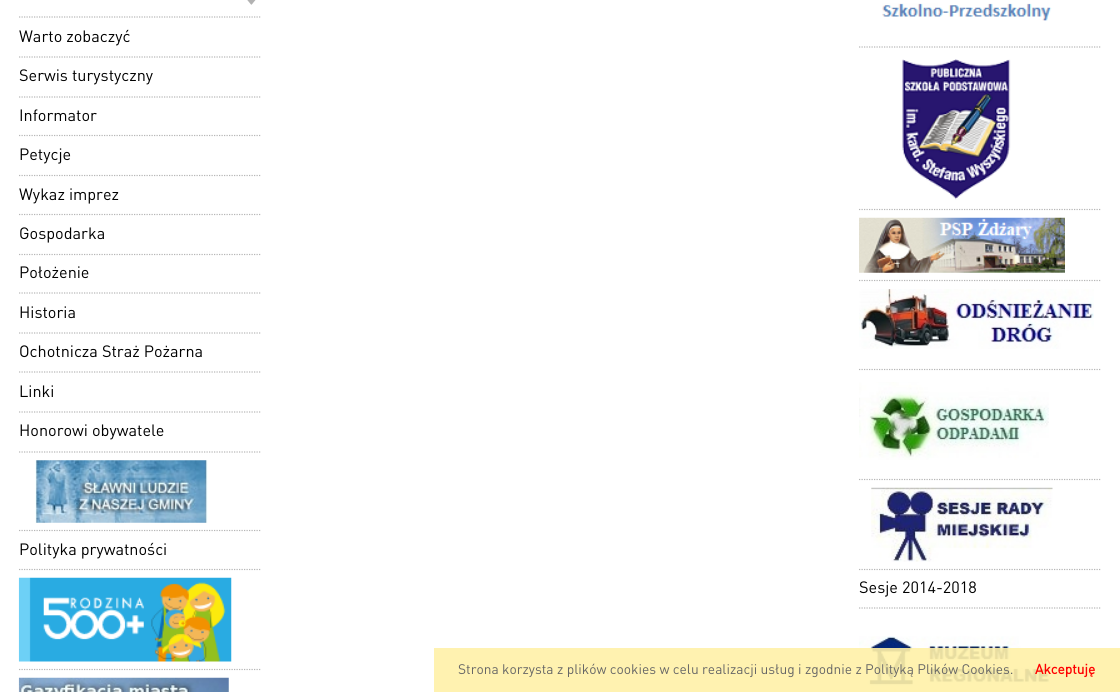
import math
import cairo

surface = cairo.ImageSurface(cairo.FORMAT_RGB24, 1120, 692)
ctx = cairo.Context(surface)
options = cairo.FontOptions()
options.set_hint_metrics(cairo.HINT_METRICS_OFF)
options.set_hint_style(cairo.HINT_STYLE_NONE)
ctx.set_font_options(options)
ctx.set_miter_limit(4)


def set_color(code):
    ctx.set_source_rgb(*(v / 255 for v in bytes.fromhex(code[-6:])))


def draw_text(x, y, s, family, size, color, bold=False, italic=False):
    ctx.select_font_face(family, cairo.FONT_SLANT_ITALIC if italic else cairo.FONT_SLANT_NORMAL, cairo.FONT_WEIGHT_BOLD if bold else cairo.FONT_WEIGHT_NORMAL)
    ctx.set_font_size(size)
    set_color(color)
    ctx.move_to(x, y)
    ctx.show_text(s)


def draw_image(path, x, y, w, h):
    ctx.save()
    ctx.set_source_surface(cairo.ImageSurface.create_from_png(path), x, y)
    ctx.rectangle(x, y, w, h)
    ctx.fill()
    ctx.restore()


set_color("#ffffff")
ctx.paint()
draw_image("assets/img1.png", 247, 0, 9, 5)
ctx.new_path()
ctx.move_to(19, 17)
ctx.line_to(261, 17)
set_color("#b6b6b6")
ctx.set_line_width(1.2)
ctx.set_dash([1.25, 1.25])
ctx.stroke()
ctx.new_path()
ctx.move_to(19, 57)
ctx.line_to(261, 57)
ctx.stroke()
draw_text(19, 42, "Warto zobaczyć", "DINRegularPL", 16.25, "#000000")
ctx.new_path()
ctx.move_to(19, 97)
ctx.line_to(261, 97)
set_color("#b6b6b6")
ctx.stroke()
draw_text(19, 81, "Serwis turystyczny", "DINRegularPL", 16.25, "#000000")
ctx.new_path()
ctx.move_to(19, 135.5)
ctx.line_to(261, 135.5)
set_color("#b6b6b6")
ctx.stroke()
draw_text(19, 121, "Informator", "DINRegularPL", 16.25, "#000000")
ctx.new_path()
ctx.move_to(19, 175.5)
ctx.line_to(261, 175.5)
set_color("#b6b6b6")
ctx.stroke()
draw_text(19, 160, "Petycje", "DINRegularPL", 16.25, "#000000")
ctx.new_path()
ctx.move_to(19, 214.5)
ctx.line_to(261, 214.5)
set_color("#b6b6b6")
ctx.stroke()
draw_text(19, 200, "Wykaz imprez", "DINRegularPL", 16.25, "#000000")
ctx.new_path()
ctx.move_to(19, 254.5)
ctx.line_to(261, 254.5)
set_color("#b6b6b6")
ctx.stroke()
draw_text(19, 239, "Gospodarka", "DINRegularPL", 16.25, "#000000")
ctx.new_path()
ctx.move_to(19, 293)
ctx.line_to(261, 293)
set_color("#b6b6b6")
ctx.stroke()
draw_text(19, 278, "Położenie", "DINRegularPL", 16.25, "#000000")
ctx.new_path()
ctx.move_to(19, 333)
ctx.line_to(261, 333)
set_color("#b6b6b6")
ctx.stroke()
draw_text(19, 318, "Historia", "DINRegularPL", 16.25, "#000000")
ctx.new_path()
ctx.move_to(19, 372)
ctx.line_to(261, 372)
set_color("#b6b6b6")
ctx.stroke()
draw_text(19, 357, "Ochotnicza Straż Pożarna", "DINRegularPL", 16.25, "#000000")
ctx.new_path()
ctx.move_to(19, 412)
ctx.line_to(261, 412)
set_color("#b6b6b6")
ctx.stroke()
draw_text(19, 397, "Linki", "DINRegularPL", 16.25, "#000000")
ctx.new_path()
ctx.move_to(19, 452)
ctx.line_to(261, 452)
set_color("#b6b6b6")
ctx.stroke()
draw_text(19, 436, "Honorowi obywatele", "DINRegularPL", 16.25, "#000000")
ctx.new_path()
ctx.move_to(19, 530.5)
ctx.line_to(261, 530.5)
set_color("#b6b6b6")
ctx.stroke()
draw_image("assets/img2.png", 35, 460, 173, 63)
ctx.new_path()
ctx.move_to(19, 569.5)
ctx.line_to(261, 569.5)
ctx.stroke()
draw_text(19, 555, "Polityka prywatności", "DINRegularPL", 16.25, "#000000")
ctx.new_path()
ctx.move_to(19, 669.5)
ctx.line_to(261, 669.5)
set_color("#b6b6b6")
ctx.stroke()
draw_image("assets/img3.png", 18, 577, 214, 85)
draw_image("assets/img4.png", 18, 677, 211, 15)
ctx.new_path()
ctx.move_to(859, 47)
ctx.line_to(1101, 47)
ctx.stroke()
draw_image("assets/img5.png", 882, 3, 170, 18)
ctx.new_path()
ctx.move_to(859, 209.5)
ctx.line_to(1101, 209.5)
ctx.stroke()
draw_image("assets/img6.png", 902, 59, 109, 141)
ctx.new_path()
ctx.move_to(859, 280.5)
ctx.line_to(1101, 280.5)
ctx.stroke()
draw_image("assets/img7.png", 859, 217, 206, 56)
ctx.new_path()
ctx.move_to(859, 369.5)
ctx.line_to(1101, 369.5)
ctx.stroke()
draw_image("assets/img8.png", 859, 289, 235, 60)
ctx.new_path()
ctx.move_to(859, 479.5)
ctx.line_to(1101, 479.5)
ctx.stroke()
draw_image("assets/img9.png", 859, 382, 190, 78)
ctx.new_path()
ctx.move_to(859, 569.5)
ctx.line_to(1101, 569.5)
ctx.stroke()
draw_image("assets/img10.png", 871, 487, 182, 75)
ctx.new_path()
ctx.move_to(859, 608)
ctx.line_to(1101, 608)
ctx.stroke()
draw_text(859, 593, "Sesje 2014-2018", "DINRegularPL", 16.25, "#000000")
draw_image("assets/img11.png", 859, 636, 200, 56)
ctx.set_source_rgba(1, 0.945, 0.659, 0.9)
ctx.rectangle(434, 648, 686, 44)
ctx.fill()
draw_text(458, 674, "Strona korzysta z plików cookies w celu realizacji usług i zgodnie z Polityką Plików Cookies.", "DINRegularPL", 13.75, "#666666")
draw_text(1035, 674, "Akceptuję", "DINRegularPL", 13.75, "#ff0000", bold=True)
surface.write_to_png("output.png")
